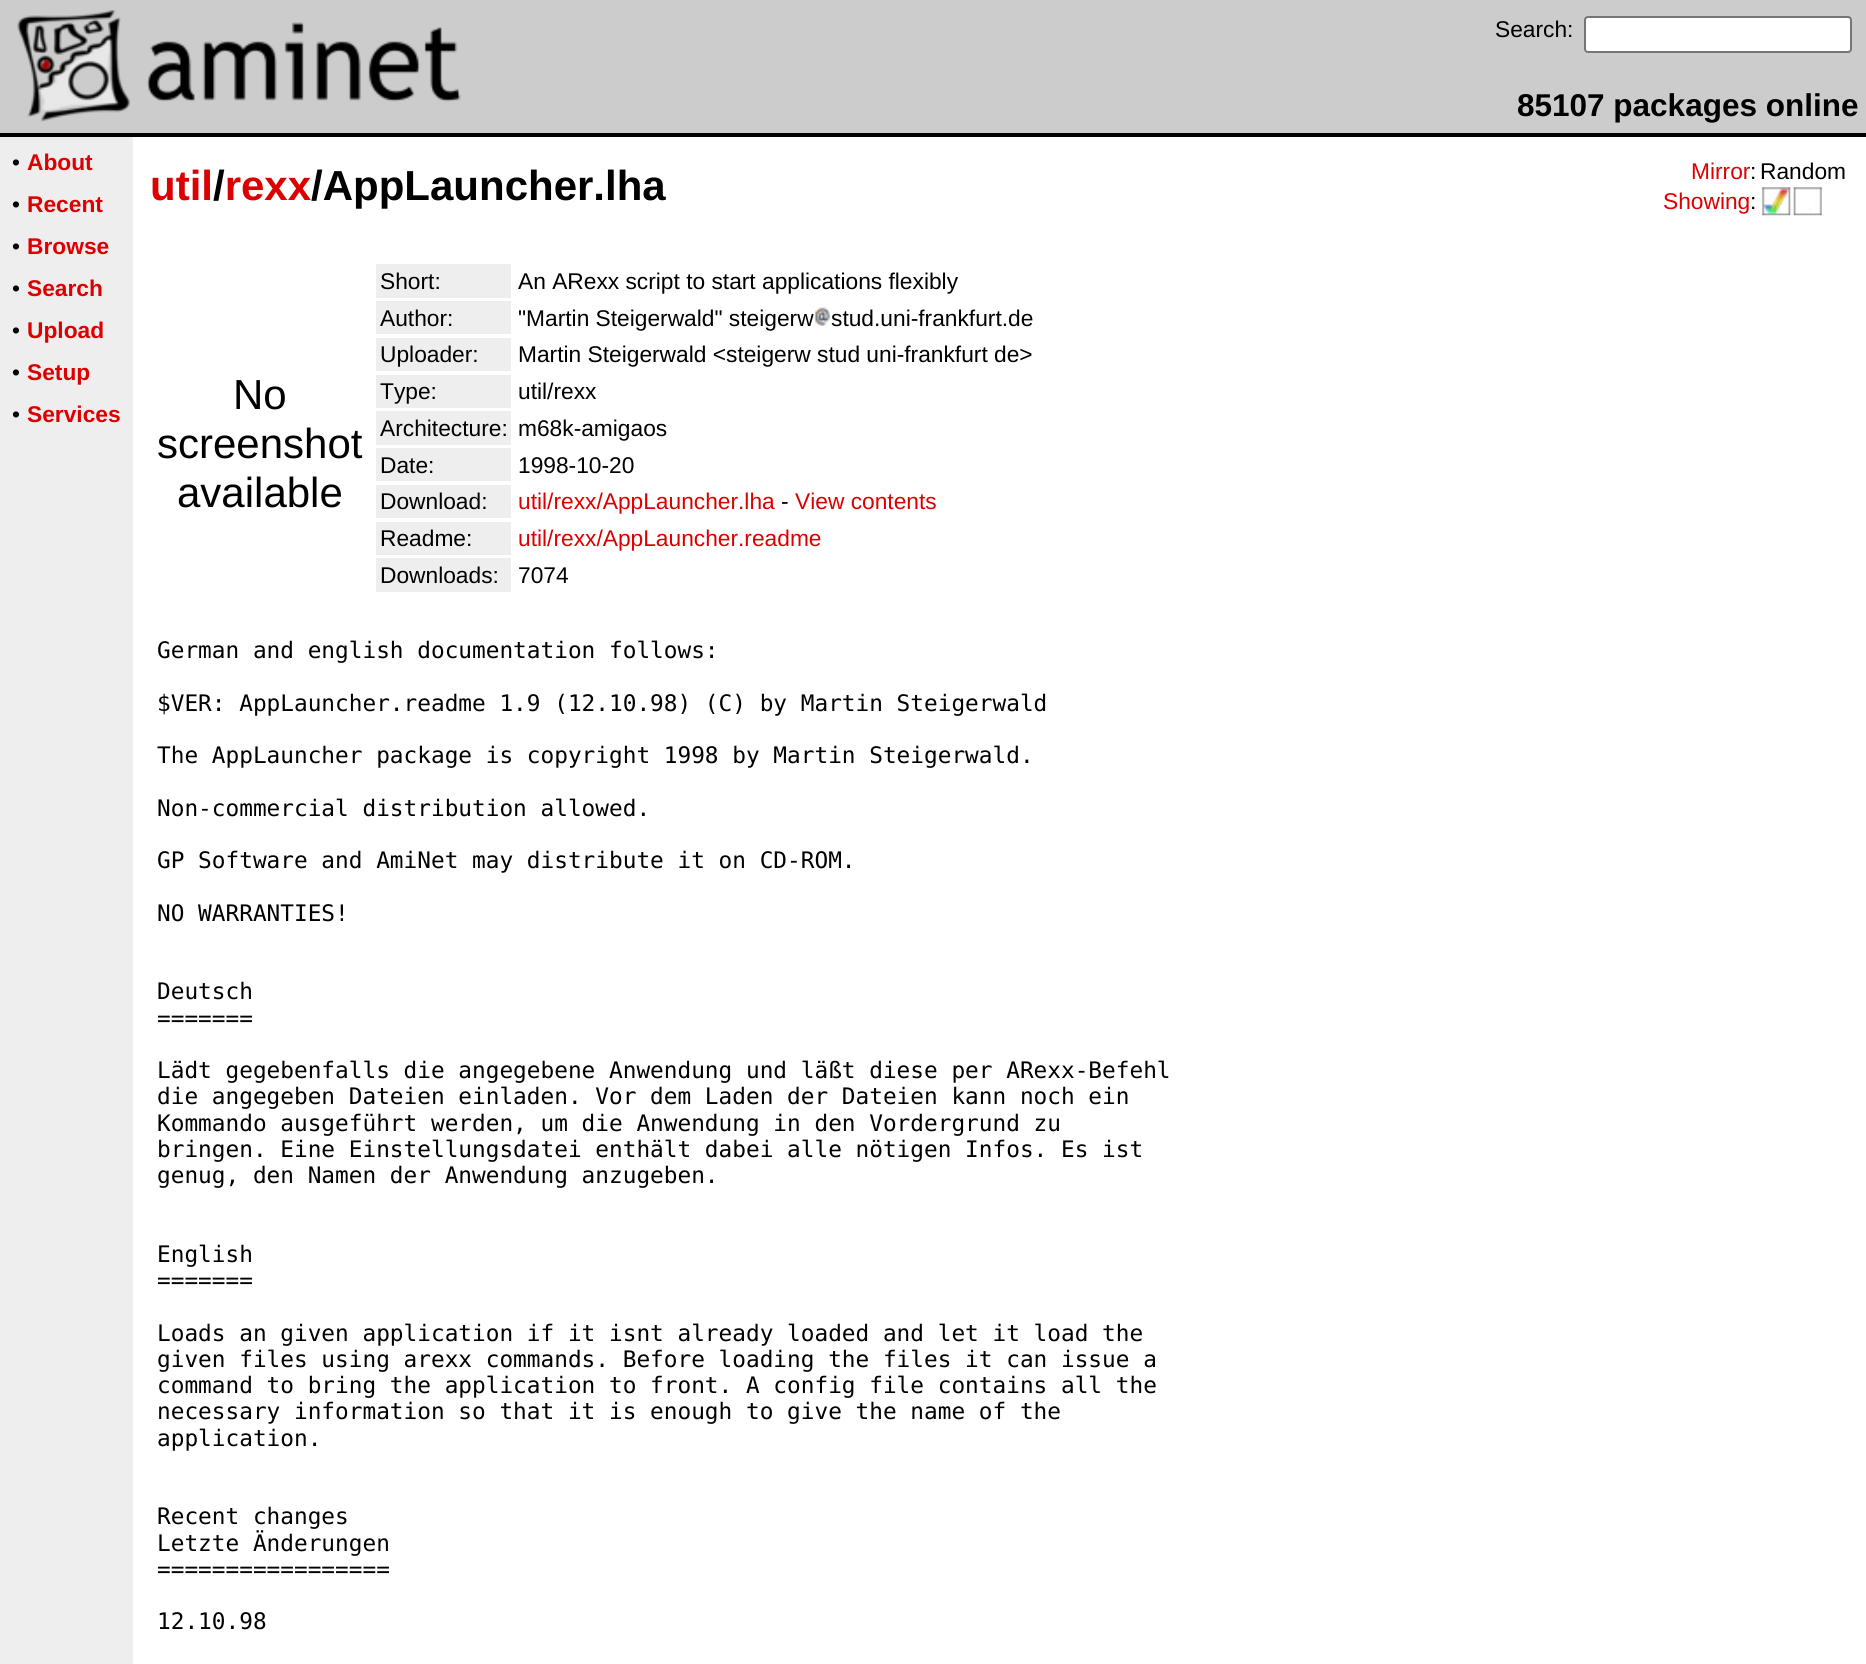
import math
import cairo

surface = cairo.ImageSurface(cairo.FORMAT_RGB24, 1866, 1664)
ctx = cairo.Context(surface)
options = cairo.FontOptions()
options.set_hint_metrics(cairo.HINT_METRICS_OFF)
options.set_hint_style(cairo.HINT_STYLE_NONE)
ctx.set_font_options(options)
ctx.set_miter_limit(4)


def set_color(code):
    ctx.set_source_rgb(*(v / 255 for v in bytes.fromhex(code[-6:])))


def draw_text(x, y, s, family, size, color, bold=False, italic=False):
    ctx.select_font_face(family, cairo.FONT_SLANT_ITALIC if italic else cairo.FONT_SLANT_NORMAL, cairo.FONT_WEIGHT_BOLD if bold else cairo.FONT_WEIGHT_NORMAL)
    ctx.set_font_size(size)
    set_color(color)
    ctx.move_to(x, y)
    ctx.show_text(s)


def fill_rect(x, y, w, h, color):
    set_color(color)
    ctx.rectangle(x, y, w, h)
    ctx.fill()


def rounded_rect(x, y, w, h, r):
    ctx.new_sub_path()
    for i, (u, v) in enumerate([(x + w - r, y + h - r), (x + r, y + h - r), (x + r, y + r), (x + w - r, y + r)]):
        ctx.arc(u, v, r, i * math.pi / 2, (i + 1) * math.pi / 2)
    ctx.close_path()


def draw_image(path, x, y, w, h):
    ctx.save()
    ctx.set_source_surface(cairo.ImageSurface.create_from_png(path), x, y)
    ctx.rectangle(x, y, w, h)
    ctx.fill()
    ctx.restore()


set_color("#ffffff")
ctx.paint()
fill_rect(0, 0, 1866, 133, "#cccccc")
draw_image("assets/img1.png", 17, 10, 113, 112)
draw_image("assets/img2.png", 146, 22, 315, 80)
draw_text(1495, 37, "Search:", "Liberation Sans", 22.75, "#000000")
set_color("#ffffff")
rounded_rect(1585, 17, 266, 35, 3)
ctx.fill_preserve()
set_color("#767676")
ctx.stroke()
draw_text(1517, 116, "85107 packages online", "Liberation Sans", 31.5, "#000000", bold=True)
fill_rect(0, 133, 1866, 4, "#000000")
fill_rect(0, 137, 133, 1527, "#eeeeee")
draw_text(12, 170, "•", "Liberation Sans", 22.75, "#000000")
draw_text(27, 170, "About", "Liberation Sans", 22.75, "#dd0000", bold=True)
draw_text(12, 212, "•", "Liberation Sans", 22.75, "#000000")
draw_text(27, 212, "Recent", "Liberation Sans", 22.75, "#dd0000", bold=True)
draw_text(12, 254, "•", "Liberation Sans", 22.75, "#000000")
draw_text(27, 254, "Browse", "Liberation Sans", 22.75, "#dd0000", bold=True)
draw_text(12, 296, "•", "Liberation Sans", 22.75, "#000000")
draw_text(27, 296, "Search", "Liberation Sans", 22.75, "#dd0000", bold=True)
draw_text(12, 338, "•", "Liberation Sans", 22.75, "#000000")
draw_text(27, 338, "Upload", "Liberation Sans", 22.75, "#dd0000", bold=True)
draw_text(12, 380, "•", "Liberation Sans", 22.75, "#000000")
draw_text(27, 380, "Setup", "Liberation Sans", 22.75, "#dd0000", bold=True)
draw_text(12, 422, "•", "Liberation Sans", 22.75, "#000000")
draw_text(27, 422, "Services", "Liberation Sans", 22.75, "#dd0000", bold=True)
draw_text(150, 200, "util rexx", "Liberation Sans", 42, "#dd0000", bold=True)
draw_text(213, 200, "/", "Liberation Sans", 42, "#000000", bold=True)
draw_text(311, 200, "/AppLauncher.lha", "Liberation Sans", 42, "#000000", bold=True)
draw_text(1691, 179, "Mirror", "Liberation Sans", 22.75, "#dd0000")
draw_text(1750, 179, ":", "Liberation Sans", 22.75, "#000000")
draw_text(1760, 179, "Random", "Liberation Sans", 22.75, "#000000")
draw_text(1663, 209, "Showing", "Liberation Sans", 22.75, "#dd0000")
draw_text(1750, 209, ":", "Liberation Sans", 22.75, "#000000")
draw_image("assets/img3.png", 1762, 187, 29, 29)
draw_image("assets/img4.png", 1793, 187, 29, 29)
draw_text(233, 409, "No", "Liberation Sans", 42, "#000000")
draw_text(157, 458, "screenshot", "Liberation Sans", 42, "#000000")
draw_text(177, 507, "available", "Liberation Sans", 42, "#000000")
fill_rect(376, 264, 135, 34, "#eeeeee")
draw_text(380, 289, "Short:", "Liberation Sans", 22.75, "#000000")
draw_text(518, 289, "An ARexx script to start applications flexibly", "Liberation Sans", 22.75, "#000000")
fill_rect(376, 301, 135, 33, "#eeeeee")
draw_text(380, 326, "Author:", "Liberation Sans", 22.75, "#000000")
draw_text(518, 326, "\"Martin Steigerwald\" steigerw", "Liberation Sans", 22.75, "#000000")
draw_image("assets/img5.png", 813, 307, 19, 19)
draw_text(831, 326, "stud.uni-frankfurt.de", "Liberation Sans", 22.75, "#000000")
fill_rect(376, 338, 135, 33, "#eeeeee")
draw_text(380, 362, "Uploader:", "Liberation Sans", 22.75, "#000000")
draw_text(518, 362, "Martin Steigerwald <steigerw stud uni-frankfurt de>", "Liberation Sans", 22.75, "#000000")
fill_rect(376, 375, 135, 33, "#eeeeee")
draw_text(380, 399, "Type:", "Liberation Sans", 22.75, "#000000")
draw_text(518, 399, "util/rexx", "Liberation Sans", 22.75, "#000000")
fill_rect(376, 411, 135, 34, "#eeeeee")
draw_text(380, 436, "Architecture:", "Liberation Sans", 22.75, "#000000")
draw_text(518, 436, "m68k-amigaos", "Liberation Sans", 22.75, "#000000")
fill_rect(376, 448, 135, 33, "#eeeeee")
draw_text(380, 473, "Date:", "Liberation Sans", 22.75, "#000000")
draw_text(518, 473, "1998-10-20", "Liberation Sans", 22.75, "#000000")
fill_rect(376, 485, 135, 33, "#eeeeee")
draw_text(380, 509, "Download:", "Liberation Sans", 22.75, "#000000")
draw_text(518, 509, "util/rexx/AppLauncher.lha", "Liberation Sans", 22.75, "#dd0000")
draw_text(781, 509, "-", "Liberation Sans", 22.75, "#000000")
draw_text(795, 509, "View contents", "Liberation Sans", 22.75, "#dd0000")
fill_rect(376, 522, 135, 33, "#eeeeee")
draw_text(380, 546, "Readme:", "Liberation Sans", 22.75, "#000000")
draw_text(518, 546, "util/rexx/AppLauncher.readme", "Liberation Sans", 22.75, "#dd0000")
fill_rect(376, 558, 135, 34, "#eeeeee")
draw_text(380, 583, "Downloads:", "Liberation Sans", 22.75, "#000000")
draw_text(518, 583, "7074", "Liberation Sans", 22.75, "#000000")
draw_text(157, 658, "German and english documentation follows:", "DejaVu Sans Mono", 22.75, "#000000")
draw_text(157, 711, "$VER: AppLauncher.readme 1.9 (12.10.98) (C) by Martin Steigerwald", "DejaVu Sans Mono", 22.75, "#000000")
draw_text(157, 763, "The AppLauncher package is copyright 1998 by Martin Steigerwald.", "DejaVu Sans Mono", 22.75, "#000000")
draw_text(157, 816, "Non-commercial distribution allowed.", "DejaVu Sans Mono", 22.75, "#000000")
draw_text(157, 868, "GP Software and AmiNet may distribute it on CD-ROM.", "DejaVu Sans Mono", 22.75, "#000000")
draw_text(157, 921, "NO WARRANTIES!", "DejaVu Sans Mono", 22.75, "#000000")
draw_text(157, 999, "Deutsch", "DejaVu Sans Mono", 22.75, "#000000")
draw_text(157, 1026, "=======", "DejaVu Sans Mono", 22.75, "#000000")
draw_text(157, 1078, "Lädt gegebenfalls die angegebene Anwendung und läßt diese per ARexx-Befehl", "DejaVu Sans Mono", 22.75, "#000000")
draw_text(157, 1104, "die angegeben Dateien einladen. Vor dem Laden der Dateien kann noch ein", "DejaVu Sans Mono", 22.75, "#000000")
draw_text(157, 1131, "Kommando ausgeführt werden, um die Anwendung in den Vordergrund zu", "DejaVu Sans Mono", 22.75, "#000000")
draw_text(157, 1157, "bringen. Eine Einstellungsdatei enthält dabei alle nötigen Infos. Es ist", "DejaVu Sans Mono", 22.75, "#000000")
draw_text(157, 1183, "genug, den Namen der Anwendung anzugeben.", "DejaVu Sans Mono", 22.75, "#000000")
draw_text(157, 1262, "English", "DejaVu Sans Mono", 22.75, "#000000")
draw_text(157, 1288, "=======", "DejaVu Sans Mono", 22.75, "#000000")
draw_text(157, 1341, "Loads an given application if it isnt already loaded and let it load the", "DejaVu Sans Mono", 22.75, "#000000")
draw_text(157, 1367, "given files using arexx commands. Before loading the files it can issue a", "DejaVu Sans Mono", 22.75, "#000000")
draw_text(157, 1393, "command to bring the application to front. A config file contains all the", "DejaVu Sans Mono", 22.75, "#000000")
draw_text(157, 1419, "necessary information so that it is enough to give the name of the", "DejaVu Sans Mono", 22.75, "#000000")
draw_text(157, 1446, "application.", "DejaVu Sans Mono", 22.75, "#000000")
draw_text(157, 1524, "Recent changes", "DejaVu Sans Mono", 22.75, "#000000")
draw_text(157, 1551, "Letzte Änderungen", "DejaVu Sans Mono", 22.75, "#000000")
draw_text(157, 1577, "=================", "DejaVu Sans Mono", 22.75, "#000000")
draw_text(157, 1629, "12.10.98", "DejaVu Sans Mono", 22.75, "#000000")
surface.write_to_png("output.png")
